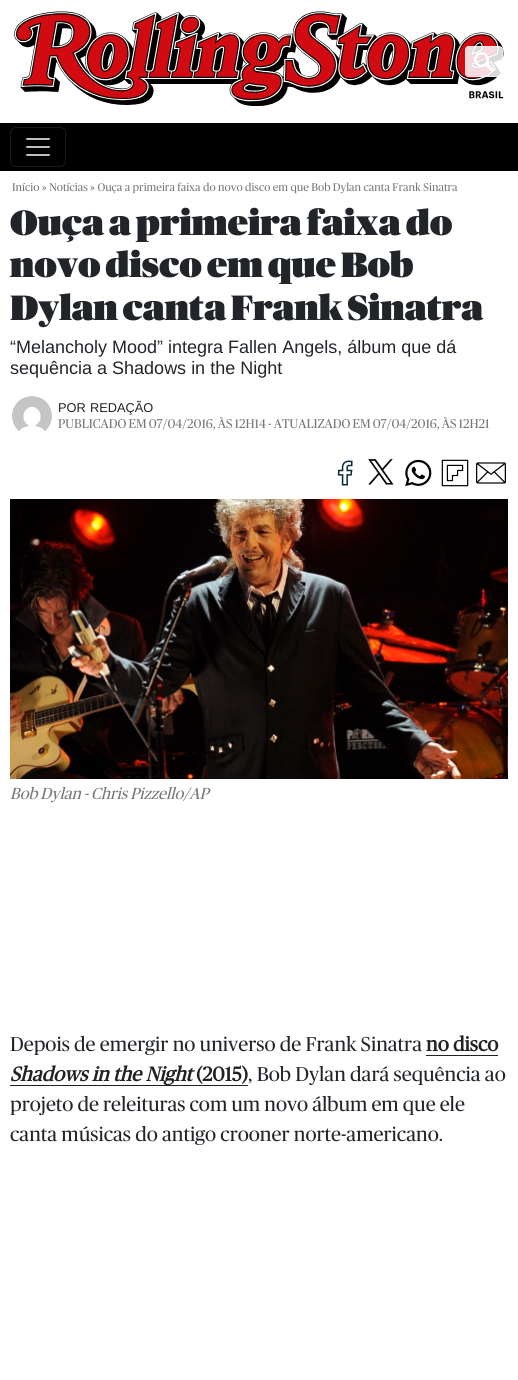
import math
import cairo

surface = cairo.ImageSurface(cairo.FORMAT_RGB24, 518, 1380)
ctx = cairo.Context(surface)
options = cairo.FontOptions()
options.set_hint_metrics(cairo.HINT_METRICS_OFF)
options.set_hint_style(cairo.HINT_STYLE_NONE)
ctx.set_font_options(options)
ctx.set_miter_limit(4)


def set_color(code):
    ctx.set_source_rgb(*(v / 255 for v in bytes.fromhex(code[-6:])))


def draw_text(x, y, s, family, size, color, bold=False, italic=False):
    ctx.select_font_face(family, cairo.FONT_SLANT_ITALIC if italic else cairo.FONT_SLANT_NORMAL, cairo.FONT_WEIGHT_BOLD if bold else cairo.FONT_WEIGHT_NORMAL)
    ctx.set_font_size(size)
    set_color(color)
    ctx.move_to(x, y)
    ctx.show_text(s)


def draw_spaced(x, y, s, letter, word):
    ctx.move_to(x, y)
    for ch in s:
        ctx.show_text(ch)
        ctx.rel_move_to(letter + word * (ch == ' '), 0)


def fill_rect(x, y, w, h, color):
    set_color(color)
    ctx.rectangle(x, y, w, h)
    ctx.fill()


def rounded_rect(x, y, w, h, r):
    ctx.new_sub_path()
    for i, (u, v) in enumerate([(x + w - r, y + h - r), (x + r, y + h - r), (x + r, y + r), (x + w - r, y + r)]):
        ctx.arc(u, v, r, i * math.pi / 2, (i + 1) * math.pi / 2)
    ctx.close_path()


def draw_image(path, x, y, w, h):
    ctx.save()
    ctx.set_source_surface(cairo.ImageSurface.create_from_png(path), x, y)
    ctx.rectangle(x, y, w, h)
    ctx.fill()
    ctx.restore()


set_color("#ffffff")
ctx.paint()
draw_image("assets/img1.png", 14, 11, 490, 95)
ctx.set_source_rgba(1, 1, 1, 0.85)
rounded_rect(465, 46, 38, 31, 4)
ctx.fill()
rounded_rect(465.5, 46.5, 37, 30, 3.5)
ctx.set_source_rgba(1, 1, 1, 0.4)
ctx.set_line_width(1)
ctx.stroke()
draw_image("assets/img2.png", 474, 52, 20, 20)
fill_rect(0, 123, 518, 48, "#000000")
rounded_rect(10.5, 127.5, 55, 39, 5.5)
set_color("#1a1a1a")
ctx.stroke()
draw_image("assets/img3.png", 26, 138, 24, 18)
draw_text(12, 191, "Início » Notícias » Ouça a primeira faixa do novo disco em que Bob Dylan canta Frank Sinatra", "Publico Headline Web", 11.2, "#777777")
ctx.select_font_face("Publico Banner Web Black")
ctx.set_font_size(35.25)
set_color("#212529")
draw_spaced(10, 235, "Ouça a primeira faixa do", 0, -0.5)
draw_spaced(10, 277, "novo disco em que Bob", 0, -1)
draw_spaced(10, 320, "Dylan canta Frank Sinatra", 0, -1)
draw_text(10, 353, "“Melancholy Mood” integra Fallen Angels, álbum que dá", "Liberation Sans", 18, "#212529")
draw_text(10, 374, "sequência a Shadows in the Night", "Liberation Sans", 18, "#212529")
draw_image("assets/img4.png", 12, 396, 40, 36)
draw_text(58, 412, "POR", "Liberation Sans", 12.8, "#212529")
draw_text(90, 412, "REDAÇÃO", "Liberation Sans", 12.8, "#212529")
ctx.select_font_face("Publico Headline Web")
set_color("#777777")
draw_spaced(58, 428, "PUBLICADO EM 07/04/2016, ÀS 12H14 - ATUALIZADO EM 07/04/2016, ÀS 12H21", 0, -0.6)
draw_image("assets/img5.png", 337, 460, 16, 26)
draw_image("assets/img6.png", 368, 459, 26, 26)
draw_image("assets/img7.png", 405, 459, 27, 28)
draw_image("assets/img8.png", 441, 459, 28, 28)
draw_image("assets/img9.png", 476, 462, 30, 22)
draw_image("assets/img10.png", 10, 499, 498, 280)
ctx.select_font_face("Publico Headline Web", cairo.FONT_SLANT_ITALIC)
ctx.set_font_size(16)
draw_spaced(10, 799, "Bob Dylan - Chris Pizzello/AP", 0, -0.5)
draw_text(10, 1051, "Depois de emergir no universo de Frank Sinatra", "Publico Headline Web", 20, "#212529")
draw_text(426, 1051, "no disco", "Publico Headline Web", 20, "#222222", bold=True)
fill_rect(426, 1055, 72, 1, "#222222")
fill_rect(10, 1085, 238, 1, "#222222")
draw_text(10, 1081, "Shadows in the Night", "Publico Headline Web", 20, "#222222", bold=True, italic=True)
draw_text(196, 1081, "(2015)", "Publico Headline Web", 20, "#222222", bold=True)
draw_text(248, 1081, ", Bob Dylan dará sequência ao", "Publico Headline Web", 20, "#212529")
draw_spaced(10, 1111, "projeto de releituras com um novo álbum em que ele", 0, -0.25)
draw_text(10, 1141, "canta músicas do antigo crooner norte-americano.", "Publico Headline Web", 20, "#212529")
surface.write_to_png("output.png")
